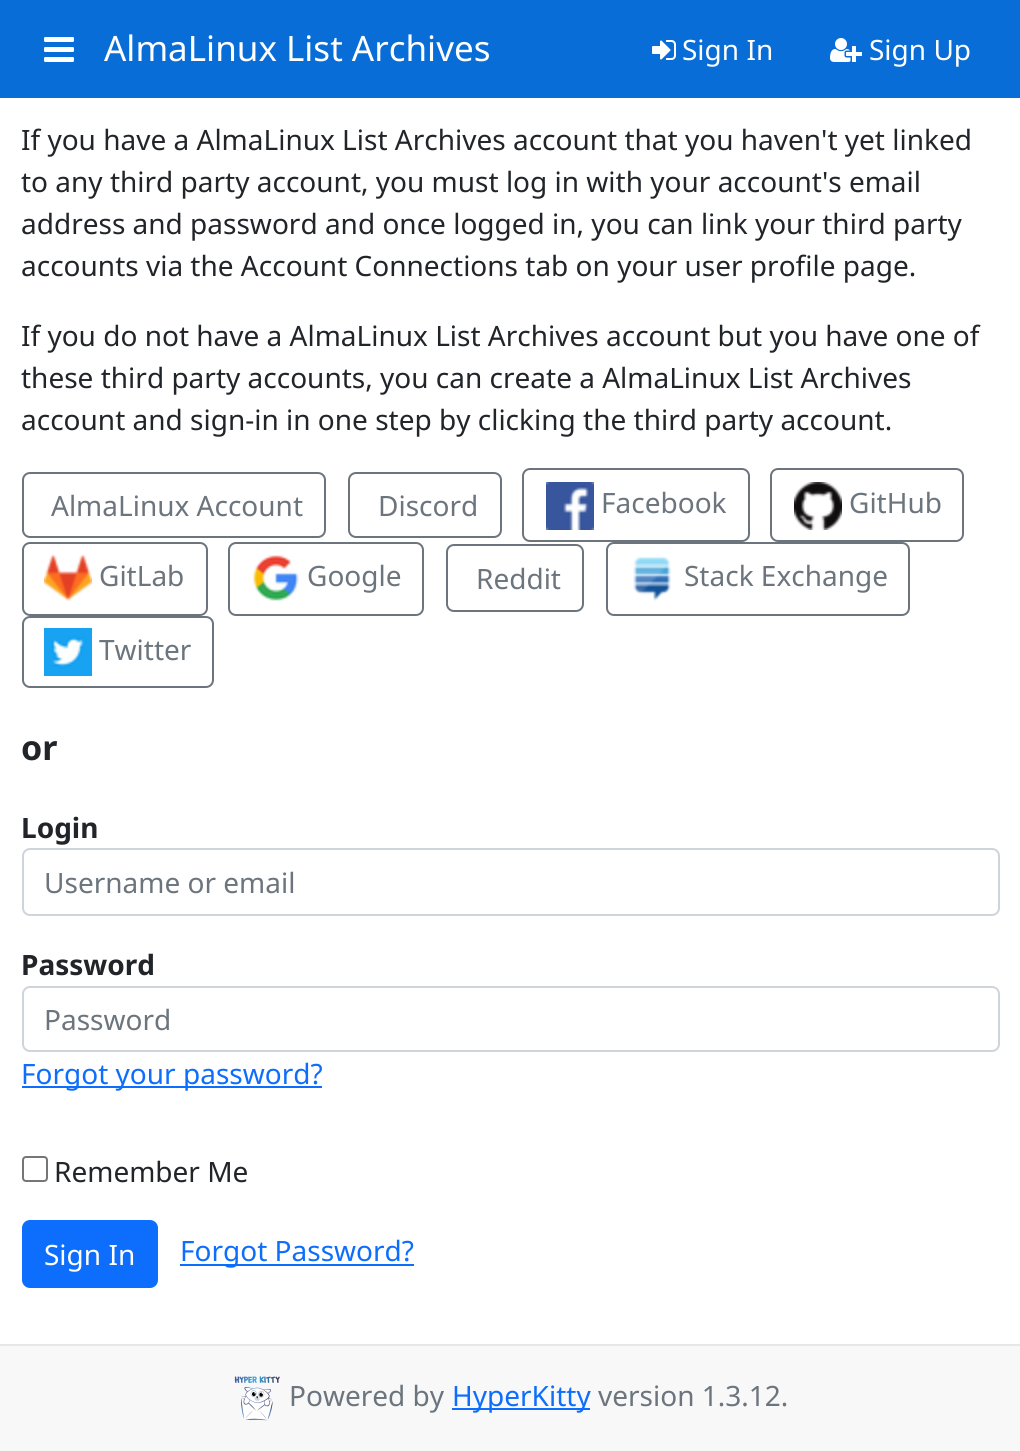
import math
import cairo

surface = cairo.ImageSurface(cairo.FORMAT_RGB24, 1020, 1451)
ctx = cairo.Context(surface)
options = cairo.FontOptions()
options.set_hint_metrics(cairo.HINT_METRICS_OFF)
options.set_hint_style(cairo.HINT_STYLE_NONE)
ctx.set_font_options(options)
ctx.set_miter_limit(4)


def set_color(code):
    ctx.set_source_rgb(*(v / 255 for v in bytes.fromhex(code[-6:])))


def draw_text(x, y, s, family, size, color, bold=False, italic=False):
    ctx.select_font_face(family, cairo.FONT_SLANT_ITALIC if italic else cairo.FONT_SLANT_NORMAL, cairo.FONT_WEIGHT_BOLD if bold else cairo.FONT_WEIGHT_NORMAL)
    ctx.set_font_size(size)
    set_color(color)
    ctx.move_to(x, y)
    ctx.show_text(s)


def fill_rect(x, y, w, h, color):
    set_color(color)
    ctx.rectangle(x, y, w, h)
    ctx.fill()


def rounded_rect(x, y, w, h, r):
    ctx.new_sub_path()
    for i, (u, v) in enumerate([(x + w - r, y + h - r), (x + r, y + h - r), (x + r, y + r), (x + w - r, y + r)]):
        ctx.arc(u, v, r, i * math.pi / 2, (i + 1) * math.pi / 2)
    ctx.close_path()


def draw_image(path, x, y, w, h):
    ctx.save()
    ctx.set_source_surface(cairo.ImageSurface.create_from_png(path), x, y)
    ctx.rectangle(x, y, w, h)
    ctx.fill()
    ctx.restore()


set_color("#ffffff")
ctx.paint()
fill_rect(0, 0, 1020, 98, "#086dd7")
draw_image("assets/img1.png", 44, 37, 30, 25)
draw_text(104, 61, "AlmaLinux List Archives", "Noto Sans", 35, "#ffffff")
draw_image("assets/img2.png", 652, 40, 24, 20)
draw_text(682, 60, "Sign In", "Noto Sans", 28, "#ffffff")
draw_image("assets/img3.png", 830, 38, 32, 24)
draw_text(869, 60, "Sign Up", "Noto Sans", 28, "#ffffff")
draw_text(21, 150, "If you have a AlmaLinux List Archives account that you haven't yet linked", "Noto Sans", 28, "#212529")
draw_text(21, 192, "to any third party account, you must log in with your account's email", "Noto Sans", 28, "#212529")
draw_text(21, 234, "address and password and once logged in, you can link your third party", "Noto Sans", 28, "#212529")
draw_text(21, 276, "accounts via the Account Connections tab on your user profile page.", "Noto Sans", 28, "#212529")
draw_text(21, 346, "If you do not have a AlmaLinux List Archives account but you have one of", "Noto Sans", 28, "#212529")
draw_text(21, 388, "these third party accounts, you can create a AlmaLinux List Archives", "Noto Sans", 28, "#212529")
draw_text(21, 430, "account and sign-in in one step by clicking the third party account.", "Noto Sans", 28, "#212529")
rounded_rect(23, 473, 302, 64, 7)
set_color("#6c757d")
ctx.stroke()
draw_text(51, 516, "AlmaLinux Account", "Noto Sans", 28, "#6c757d")
rounded_rect(349, 473, 152, 64, 7)
ctx.stroke()
draw_text(378, 516, "Discord", "Noto Sans", 28, "#6c757d")
rounded_rect(523, 469, 226, 72, 7)
ctx.stroke()
draw_image("assets/img4.png", 546, 482, 48, 48)
draw_text(601, 513, "Facebook", "Noto Sans", 28, "#6c757d")
rounded_rect(771, 469, 192, 72, 7)
ctx.stroke()
draw_image("assets/img5.png", 794, 482, 48, 48)
draw_text(849, 513, "GitHub", "Noto Sans", 28, "#6c757d")
rounded_rect(23, 543, 184, 72, 7)
ctx.stroke()
draw_image("assets/img6.png", 44, 554, 48, 47)
draw_text(99, 586, "GitLab", "Noto Sans", 28, "#6c757d")
rounded_rect(229, 543, 194, 72, 7)
ctx.stroke()
draw_image("assets/img7.png", 253, 555, 46, 46)
draw_text(307, 586, "Google", "Noto Sans", 28, "#6c757d")
rounded_rect(447, 545, 136, 66, 7)
ctx.stroke()
draw_text(476, 589, "Reddit", "Noto Sans", 28, "#6c757d")
rounded_rect(607, 543, 302, 72, 7)
ctx.stroke()
draw_image("assets/img8.png", 633, 556, 38, 45)
draw_text(684, 586, "Stack Exchange", "Noto Sans", 28, "#6c757d")
rounded_rect(23, 617, 190, 70, 7)
ctx.stroke()
draw_image("assets/img9.png", 44, 628, 48, 48)
draw_text(99, 660, "Twitter", "Noto Sans", 28, "#6c757d")
draw_text(21, 760, "or", "Noto Sans", 34, "#212529", bold=True)
draw_text(21, 838, "Login", "Noto Sans", 28, "#212529", bold=True)
rounded_rect(23, 849, 976, 66, 7)
set_color("#ced4da")
ctx.stroke()
draw_text(44, 893, "Username or email", "Noto Sans", 28, "#6c757d")
draw_text(21, 975, "Password", "Noto Sans", 28, "#212529", bold=True)
rounded_rect(23, 987, 976, 64, 7)
set_color("#ced4da")
ctx.stroke()
draw_text(44, 1030, "Password", "Noto Sans", 28, "#6c757d")
fill_rect(22, 1086, 300, 2, "#0d6efd")
draw_text(21, 1084, "Forgot your password?", "Noto Sans", 28, "#0d6efd")
rounded_rect(23, 1157, 24, 24, 3)
set_color("#767676")
ctx.stroke()
draw_text(54, 1182, "Remember Me", "Noto Sans", 28, "#212529")
set_color("#0d6efd")
rounded_rect(23, 1221, 134, 66, 7)
ctx.fill_preserve()
ctx.stroke()
draw_text(44, 1265, "Sign In", "Noto Sans", 28, "#ffffff")
fill_rect(180, 1264, 234, 2, "#0d6efd")
draw_text(180, 1261, "Forgot Password?", "Noto Sans", 28, "#0d6efd")
fill_rect(0, 1346, 1020, 105, "#f8f8f8")
fill_rect(0, 1344, 1020, 2, "#e7e7e7")
draw_image("assets/img10.png", 234, 1376, 46, 45)
draw_text(289, 1406, "Powered by", "Noto Sans", 28, "#6c757d")
fill_rect(452, 1408, 138, 2, "#0d6efd")
draw_text(452, 1406, "HyperKitty", "Noto Sans", 28, "#0d6efd")
draw_text(598, 1406, "version 1.3.12.", "Noto Sans", 28, "#6c757d")
surface.write_to_png("output.png")
